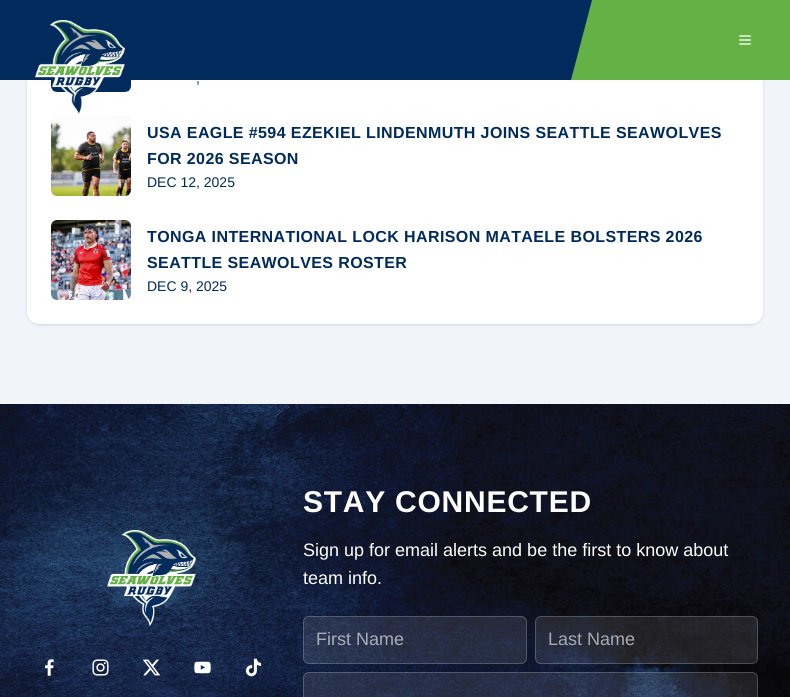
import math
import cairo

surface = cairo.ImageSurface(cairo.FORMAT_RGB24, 790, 697)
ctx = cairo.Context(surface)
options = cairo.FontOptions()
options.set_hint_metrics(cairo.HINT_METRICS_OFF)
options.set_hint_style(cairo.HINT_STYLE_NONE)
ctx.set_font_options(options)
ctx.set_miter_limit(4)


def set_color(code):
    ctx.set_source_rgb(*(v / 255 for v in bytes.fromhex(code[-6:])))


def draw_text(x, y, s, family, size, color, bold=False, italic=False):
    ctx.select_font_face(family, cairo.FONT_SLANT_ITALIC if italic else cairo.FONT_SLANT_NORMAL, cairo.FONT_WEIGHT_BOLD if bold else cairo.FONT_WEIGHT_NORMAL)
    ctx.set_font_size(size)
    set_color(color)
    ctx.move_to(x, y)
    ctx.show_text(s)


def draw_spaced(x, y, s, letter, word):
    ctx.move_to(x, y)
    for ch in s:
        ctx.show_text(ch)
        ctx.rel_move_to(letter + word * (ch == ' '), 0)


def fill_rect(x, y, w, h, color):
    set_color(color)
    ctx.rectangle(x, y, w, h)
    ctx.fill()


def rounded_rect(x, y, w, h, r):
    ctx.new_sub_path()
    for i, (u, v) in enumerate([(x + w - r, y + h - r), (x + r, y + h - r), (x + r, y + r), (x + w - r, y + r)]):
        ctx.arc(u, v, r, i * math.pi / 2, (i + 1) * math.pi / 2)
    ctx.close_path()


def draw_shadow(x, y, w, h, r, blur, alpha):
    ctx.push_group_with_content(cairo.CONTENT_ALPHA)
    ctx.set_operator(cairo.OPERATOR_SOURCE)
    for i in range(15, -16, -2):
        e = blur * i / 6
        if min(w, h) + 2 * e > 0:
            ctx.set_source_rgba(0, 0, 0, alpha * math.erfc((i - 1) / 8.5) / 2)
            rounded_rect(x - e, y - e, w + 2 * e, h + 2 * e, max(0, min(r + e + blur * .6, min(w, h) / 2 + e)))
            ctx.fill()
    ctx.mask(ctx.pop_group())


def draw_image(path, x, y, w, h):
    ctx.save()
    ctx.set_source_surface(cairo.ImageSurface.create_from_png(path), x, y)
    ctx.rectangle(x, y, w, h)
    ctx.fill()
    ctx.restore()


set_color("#f1f5f9")
ctx.paint()
set_color("#000000")
draw_shadow(28, -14, 734, 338, 11, 1, 0.1)
draw_shadow(27, -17, 736, 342, 12, 1.5, 0.1)
set_color("#ffffff")
rounded_rect(27, -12, 736, 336, 12)
ctx.fill()
fill_rect(0, 0, 592, 80, "#002b5c")
set_color("#64b246")
ctx.new_path()
ctx.move_to(592, 0)
ctx.line_to(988, 0)
ctx.line_to(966, 80)
ctx.line_to(571, 80)
ctx.close_path()
ctx.fill()
draw_image("assets/img3.png", 51, 80, 80, 12)
draw_image("assets/img1.png", 35, 20, 90, 94)
draw_image("assets/img2.png", 739, 35, 12, 10)
draw_text(196, 83, ",", "Liberation Sans", 14, "#002b5c")
draw_image("assets/img4.png", 51, 116, 80, 80)
ctx.select_font_face("Liberation Sans", cairo.FONT_SLANT_NORMAL, cairo.FONT_WEIGHT_BOLD)
ctx.set_font_size(16)
draw_spaced(147, 138, "USA EAGLE #594 EZEKIEL LINDENMUTH JOINS SEATTLE SEAWOLVES", 0.4, 0)
draw_spaced(147, 164, "FOR 2026 SEASON", 0.4, 0)
draw_text(147, 187, "DEC 12, 2025", "Liberation Sans", 14, "#002b5c")
draw_image("assets/img5.png", 51, 220, 80, 80)
ctx.select_font_face("Liberation Sans", cairo.FONT_SLANT_NORMAL, cairo.FONT_WEIGHT_BOLD)
ctx.set_font_size(16)
draw_spaced(147, 242, "TONGA INTERNATIONAL LOCK HARISON MATAELE BOLSTERS 2026", 0.4, 0)
draw_spaced(147, 268, "SEATTLE SEAWOLVES ROSTER", 0.4, 0)
draw_text(147, 291, "DEC 9, 2025", "Liberation Sans", 14, "#002b5c")
draw_image("assets/img6.png", 0, 404, 790, 293)
draw_image("assets/img7.png", 107, 530, 89, 96)
draw_image("assets/img8.png", 45, 659, 9, 17)
draw_image("assets/img9.png", 92, 659, 17, 17)
draw_image("assets/img10.png", 142, 659, 19, 17)
draw_image("assets/img11.png", 194, 661, 17, 13)
draw_image("assets/img12.png", 245, 658, 17, 19)
ctx.select_font_face("Liberation Sans", cairo.FONT_SLANT_NORMAL, cairo.FONT_WEIGHT_BOLD)
ctx.set_font_size(30)
set_color("#ffffff")
draw_spaced(303, 512, "STAY CONNECTED", 0.75, 0)
draw_text(303, 556, "Sign up for email alerts and be the first to know about", "Liberation Sans", 18, "#ffffff")
draw_text(303, 584, "team info.", "Liberation Sans", 18, "#ffffff")
ctx.set_source_rgba(1, 1, 1, 0.1)
rounded_rect(303, 616, 224, 48, 6)
ctx.fill()
rounded_rect(303.5, 616.5, 223, 47, 5.5)
ctx.set_source_rgba(1, 1, 1, 0.2)
ctx.set_line_width(1)
ctx.stroke()
draw_text(316, 645, "First Name", "Liberation Sans", 18, "#a9adb8")
ctx.set_source_rgba(1, 1, 1, 0.1)
rounded_rect(535, 616, 223, 48, 6)
ctx.fill()
rounded_rect(535.5, 616.5, 222, 47, 5.5)
ctx.set_source_rgba(1, 1, 1, 0.2)
ctx.stroke()
draw_text(548, 645, "Last Name", "Liberation Sans", 18, "#a8aaaf")
ctx.set_source_rgba(1, 1, 1, 0.1)
rounded_rect(303, 672, 455, 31, 6)
ctx.fill()
rounded_rect(303.5, 672.5, 454, 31, 5.5)
ctx.set_source_rgba(1, 1, 1, 0.2)
ctx.stroke()
surface.write_to_png("output.png")
